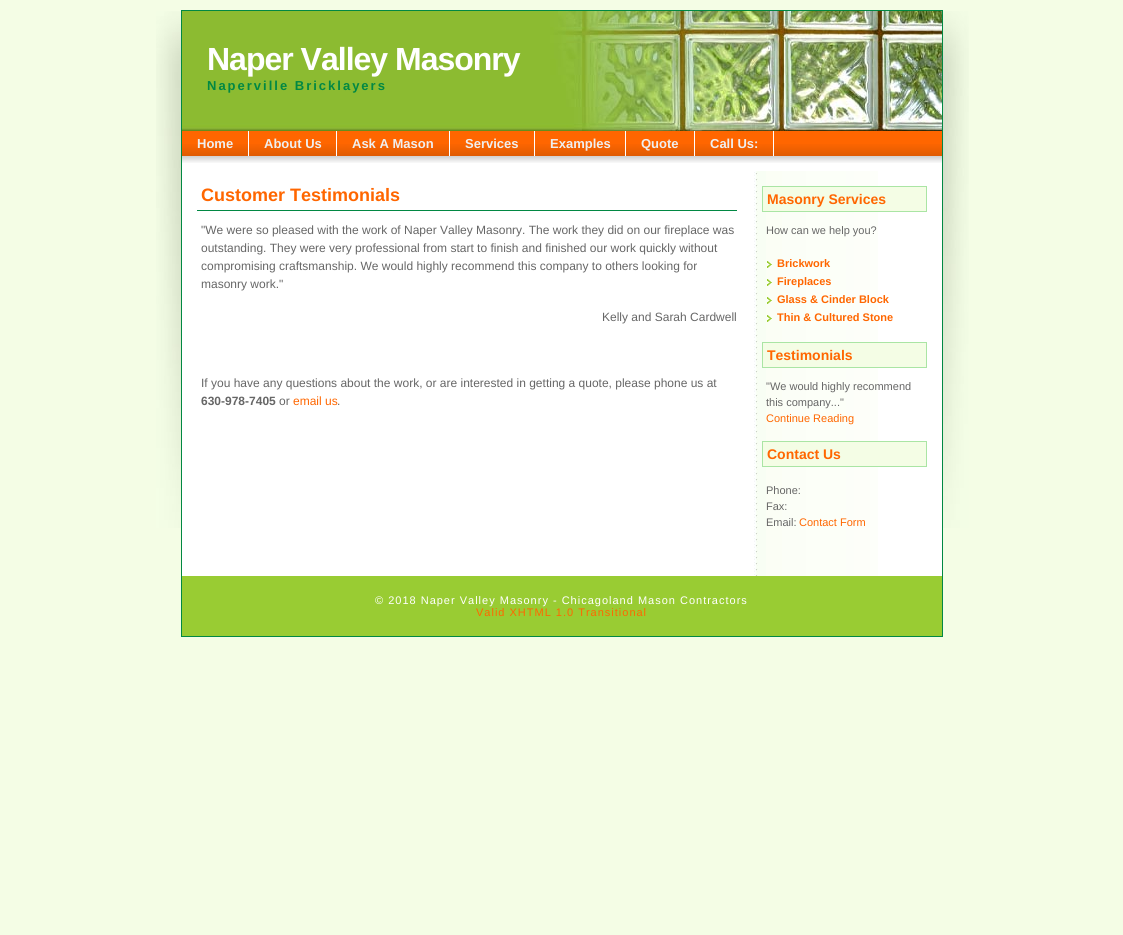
import math
import cairo

surface = cairo.ImageSurface(cairo.FORMAT_RGB24, 1123, 935)
ctx = cairo.Context(surface)
options = cairo.FontOptions()
options.set_hint_metrics(cairo.HINT_METRICS_OFF)
options.set_hint_style(cairo.HINT_STYLE_NONE)
ctx.set_font_options(options)
ctx.set_miter_limit(4)


def set_color(code):
    ctx.set_source_rgb(*(v / 255 for v in bytes.fromhex(code[-6:])))


def draw_text(x, y, s, family, size, color, bold=False, italic=False):
    ctx.select_font_face(family, cairo.FONT_SLANT_ITALIC if italic else cairo.FONT_SLANT_NORMAL, cairo.FONT_WEIGHT_BOLD if bold else cairo.FONT_WEIGHT_NORMAL)
    ctx.set_font_size(size)
    set_color(color)
    ctx.move_to(x, y)
    ctx.show_text(s)


def draw_spaced(x, y, s, letter, word):
    ctx.move_to(x, y)
    for ch in s:
        ctx.show_text(ch)
        ctx.rel_move_to(letter + word * (ch == ' '), 0)


def fill_rect(x, y, w, h, color):
    set_color(color)
    ctx.rectangle(x, y, w, h)
    ctx.fill()


def draw_image(path, x, y, w, h):
    ctx.save()
    ctx.set_source_surface(cairo.ImageSurface.create_from_png(path), x, y)
    ctx.rectangle(x, y, w, h)
    ctx.fill()
    ctx.restore()


set_color("#f4fde5")
ctx.paint()
draw_image("assets/img1.png", 156, 11, 813, 517)
fill_rect(182, 171, 760, 405, "#ffffff")
draw_image("assets/img2.png", 754, 171, 124, 405)
ctx.rectangle(181.5, 10.5, 761, 626)
set_color("#018843")
ctx.set_line_width(1)
ctx.stroke()
draw_image("assets/img3.png", 182, 11, 760, 120)
ctx.select_font_face("Liberation Sans", cairo.FONT_SLANT_NORMAL, cairo.FONT_WEIGHT_BOLD)
ctx.set_font_size(32)
set_color("#ffffff")
draw_spaced(207, 70, "Naper Valley Masonry", -1, 0)
ctx.set_font_size(13)
set_color("#018843")
draw_spaced(207, 90, "Naperville Bricklayers", 2, 0)
fill_rect(182, 163, 760, 8, "#ffffff")
draw_image("assets/img4.png", 182, 156, 760, 7)
fill_rect(774, 131, 168, 13, "#ff6600")
draw_image("assets/img5.png", 774, 144, 168, 12)
fill_rect(182, 131, 66, 13, "#ff6600")
draw_image("assets/img6.png", 182, 144, 66, 12)
fill_rect(248, 131, 1, 25, "#ffffff")
draw_text(197, 148, "Home", "Liberation Sans", 13, "#efefef", bold=True)
fill_rect(249, 131, 87, 13, "#ff6600")
draw_image("assets/img7.png", 249, 144, 87, 12)
fill_rect(336, 131, 1, 25, "#ffffff")
draw_text(264, 148, "About Us", "Liberation Sans", 13, "#efefef", bold=True)
fill_rect(337, 131, 112, 13, "#ff6600")
draw_image("assets/img8.png", 337, 144, 112, 12)
fill_rect(449, 131, 1, 25, "#ffffff")
draw_text(352, 148, "Ask A Mason", "Liberation Sans", 13, "#efefef", bold=True)
fill_rect(450, 131, 84, 13, "#ff6600")
draw_image("assets/img9.png", 450, 144, 84, 12)
fill_rect(534, 131, 1, 25, "#ffffff")
draw_text(465, 148, "Services", "Liberation Sans", 13, "#efefef", bold=True)
fill_rect(535, 131, 90, 13, "#ff6600")
draw_image("assets/img10.png", 535, 144, 90, 12)
fill_rect(625, 131, 1, 25, "#ffffff")
draw_text(550, 148, "Examples", "Liberation Sans", 13, "#efefef", bold=True)
fill_rect(626, 131, 68, 13, "#ff6600")
draw_image("assets/img11.png", 626, 144, 68, 12)
fill_rect(694, 131, 1, 25, "#ffffff")
draw_text(641, 148, "Quote", "Liberation Sans", 13, "#efefef", bold=True)
fill_rect(695, 131, 78, 13, "#ff6600")
draw_image("assets/img12.png", 695, 144, 78, 12)
fill_rect(773, 131, 1, 25, "#ffffff")
draw_text(710, 148, "Call Us:", "Liberation Sans", 13, "#efefef", bold=True)
fill_rect(197, 210, 540, 1, "#018843")
draw_text(201, 201, "Customer Testimonials", "Liberation Sans", 18, "#ff6600", bold=True)
draw_text(201, 234, "\"We were so pleased with the work of Naper Valley Masonry. The work they did on our fireplace was", "Liberation Sans", 12, "#666666")
draw_text(201, 252, "outstanding. They were very professional from start to finish and finished our work quickly without", "Liberation Sans", 12, "#666666")
draw_text(201, 270, "compromising craftsmanship. We would highly recommend this company to others looking for", "Liberation Sans", 12, "#666666")
draw_text(201, 288, "masonry work.\"", "Liberation Sans", 12, "#666666")
draw_text(602, 321, "Kelly and Sarah Cardwell", "Liberation Sans", 12, "#666666")
draw_text(201, 387, "If you have any questions about the work, or are interested in getting a quote, please phone us at", "Liberation Sans", 12, "#666666")
draw_text(201, 405, "630-978-7405", "Liberation Sans", 12, "#666666", bold=True)
draw_text(279, 405, "or", "Liberation Sans", 12, "#666666")
draw_text(293, 405, "email us", "Liberation Sans", 12, "#ff6600")
draw_text(337, 405, ".", "Liberation Sans", 12, "#666666")
set_color("#f4fde5")
ctx.rectangle(762.5, 186.5, 164, 25)
ctx.fill_preserve()
set_color("#aae5a4")
ctx.stroke()
draw_text(767, 204, "Masonry Services", "Liberation Sans", 14, "#ff6600", bold=True)
draw_text(766, 234, "How can we help you?", "Liberation Sans", 11, "#666666")
draw_image("assets/img13.png", 767, 261, 5, 7)
draw_text(777, 267, "Brickwork", "Liberation Sans", 11, "#ff6600", bold=True)
draw_image("assets/img13.png", 767, 279, 5, 7)
draw_text(777, 285, "Fireplaces", "Liberation Sans", 11, "#ff6600", bold=True)
draw_image("assets/img13.png", 767, 297, 5, 7)
draw_text(777, 303, "Glass & Cinder Block", "Liberation Sans", 11, "#ff6600", bold=True)
draw_image("assets/img13.png", 767, 315, 5, 7)
draw_text(777, 321, "Thin & Cultured Stone", "Liberation Sans", 11, "#ff6600", bold=True)
set_color("#f4fde5")
ctx.rectangle(762.5, 342.5, 164, 25)
ctx.fill_preserve()
set_color("#aae5a4")
ctx.stroke()
draw_text(767, 360, "Testimonials", "Liberation Sans", 14, "#ff6600", bold=True)
draw_text(766, 390, "\"We would highly recommend", "Liberation Sans", 11, "#666666")
draw_text(766, 406, "this company...\"", "Liberation Sans", 11, "#666666")
draw_text(766, 422, "Continue Reading", "Liberation Sans", 11, "#ff6600")
set_color("#f4fde5")
ctx.rectangle(762.5, 441.5, 164, 25)
ctx.fill_preserve()
set_color("#aae5a4")
ctx.stroke()
draw_text(767, 459, "Contact Us", "Liberation Sans", 14, "#ff6600", bold=True)
draw_text(766, 494, "Phone:", "Liberation Sans", 11, "#666666")
draw_text(766, 510, "Fax:", "Liberation Sans", 11, "#666666")
draw_text(766, 526, "Email:", "Liberation Sans", 11, "#666666")
draw_text(799, 526, "Contact Form", "Liberation Sans", 11, "#ff6600")
fill_rect(182, 576, 760, 60, "#99cc33")
set_color("#ffffff")
draw_spaced(375, 604, "© 2018 Naper Valley Masonry - Chicagoland Mason Contractors", 1, 0)
set_color("#ff6600")
draw_spaced(476, 616, "Valid XHTML 1.0 Transitional", 1, 0)
surface.write_to_png("output.png")
